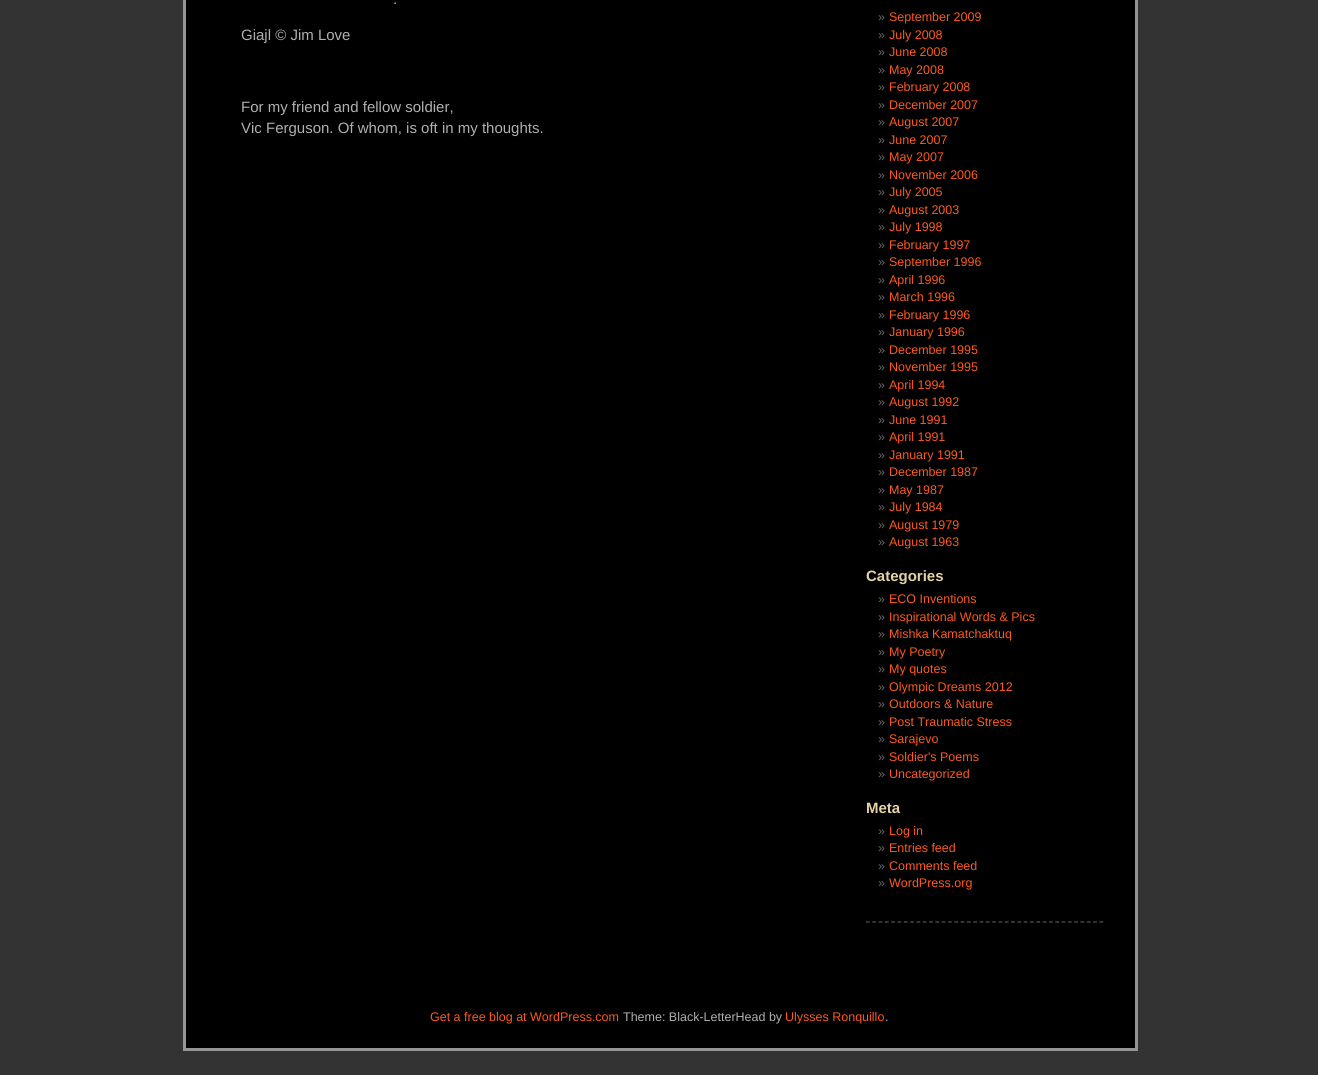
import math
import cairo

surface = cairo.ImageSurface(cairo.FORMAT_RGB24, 1318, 1075)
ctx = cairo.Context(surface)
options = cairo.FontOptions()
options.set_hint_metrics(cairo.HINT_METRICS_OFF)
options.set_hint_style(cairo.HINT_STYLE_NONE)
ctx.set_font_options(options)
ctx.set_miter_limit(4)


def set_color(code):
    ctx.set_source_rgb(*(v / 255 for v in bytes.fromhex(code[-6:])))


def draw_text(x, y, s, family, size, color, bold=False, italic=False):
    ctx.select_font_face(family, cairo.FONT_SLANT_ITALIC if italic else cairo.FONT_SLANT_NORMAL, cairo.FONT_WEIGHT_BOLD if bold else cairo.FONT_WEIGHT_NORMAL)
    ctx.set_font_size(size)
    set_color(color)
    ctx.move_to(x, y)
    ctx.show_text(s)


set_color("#333333")
ctx.paint()
set_color("#000000")
ctx.rectangle(184.5, -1.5, 952, 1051)
ctx.fill_preserve()
set_color("#959596")
ctx.set_line_width(3)
ctx.stroke()
draw_text(393, 4, ".", "Liberation Sans", 15, "#b0b0b0")
draw_text(241, 40, "Giajl © Jim Love", "Liberation Sans", 15, "#b0b0b0")
draw_text(241, 112, "For my friend and fellow soldier,", "Liberation Sans", 15, "#b0b0b0")
draw_text(241, 133, "Vic Ferguson. Of whom, is oft in my thoughts.", "Liberation Sans", 15, "#b0b0b0")
ctx.new_path()
ctx.move_to(866, 922)
ctx.line_to(1104, 922)
set_color("#555555")
ctx.set_line_width(1.2)
ctx.set_dash([3.75, 2.56])
ctx.stroke()
draw_text(878, 21, "»", "Liberation Sans", 12.5, "#666666")
draw_text(889, 21, "September 2009", "Liberation Sans", 12.5, "#fd5a1e")
draw_text(878, 39, "»", "Liberation Sans", 12.5, "#666666")
draw_text(889, 39, "July 2008", "Liberation Sans", 12.5, "#fd5a1e")
draw_text(878, 56, "»", "Liberation Sans", 12.5, "#666666")
draw_text(889, 56, "June 2008", "Liberation Sans", 12.5, "#fd5a1e")
draw_text(878, 74, "»", "Liberation Sans", 12.5, "#666666")
draw_text(889, 74, "May 2008", "Liberation Sans", 12.5, "#fd5a1e")
draw_text(878, 91, "»", "Liberation Sans", 12.5, "#666666")
draw_text(889, 91, "February 2008", "Liberation Sans", 12.5, "#fd5a1e")
draw_text(878, 109, "»", "Liberation Sans", 12.5, "#666666")
draw_text(889, 109, "December 2007", "Liberation Sans", 12.5, "#fd5a1e")
draw_text(878, 126, "»", "Liberation Sans", 12.5, "#666666")
draw_text(889, 126, "August 2007", "Liberation Sans", 12.5, "#fd5a1e")
draw_text(878, 144, "»", "Liberation Sans", 12.5, "#666666")
draw_text(889, 144, "June 2007", "Liberation Sans", 12.5, "#fd5a1e")
draw_text(878, 161, "»", "Liberation Sans", 12.5, "#666666")
draw_text(889, 161, "May 2007", "Liberation Sans", 12.5, "#fd5a1e")
draw_text(878, 179, "»", "Liberation Sans", 12.5, "#666666")
draw_text(889, 179, "November 2006", "Liberation Sans", 12.5, "#fd5a1e")
draw_text(878, 196, "»", "Liberation Sans", 12.5, "#666666")
draw_text(889, 196, "July 2005", "Liberation Sans", 12.5, "#fd5a1e")
draw_text(878, 214, "»", "Liberation Sans", 12.5, "#666666")
draw_text(889, 214, "August 2003", "Liberation Sans", 12.5, "#fd5a1e")
draw_text(878, 231, "»", "Liberation Sans", 12.5, "#666666")
draw_text(889, 231, "July 1998", "Liberation Sans", 12.5, "#fd5a1e")
draw_text(878, 249, "»", "Liberation Sans", 12.5, "#666666")
draw_text(889, 249, "February 1997", "Liberation Sans", 12.5, "#fd5a1e")
draw_text(878, 266, "»", "Liberation Sans", 12.5, "#666666")
draw_text(889, 266, "September 1996", "Liberation Sans", 12.5, "#fd5a1e")
draw_text(878, 284, "»", "Liberation Sans", 12.5, "#666666")
draw_text(889, 284, "April 1996", "Liberation Sans", 12.5, "#fd5a1e")
draw_text(878, 301, "»", "Liberation Sans", 12.5, "#666666")
draw_text(889, 301, "March 1996", "Liberation Sans", 12.5, "#fd5a1e")
draw_text(878, 319, "»", "Liberation Sans", 12.5, "#666666")
draw_text(889, 319, "February 1996", "Liberation Sans", 12.5, "#fd5a1e")
draw_text(878, 336, "»", "Liberation Sans", 12.5, "#666666")
draw_text(889, 336, "January 1996", "Liberation Sans", 12.5, "#fd5a1e")
draw_text(878, 354, "»", "Liberation Sans", 12.5, "#666666")
draw_text(889, 354, "December 1995", "Liberation Sans", 12.5, "#fd5a1e")
draw_text(878, 371, "»", "Liberation Sans", 12.5, "#666666")
draw_text(889, 371, "November 1995", "Liberation Sans", 12.5, "#fd5a1e")
draw_text(878, 389, "»", "Liberation Sans", 12.5, "#666666")
draw_text(889, 389, "April 1994", "Liberation Sans", 12.5, "#fd5a1e")
draw_text(878, 406, "»", "Liberation Sans", 12.5, "#666666")
draw_text(889, 406, "August 1992", "Liberation Sans", 12.5, "#fd5a1e")
draw_text(878, 424, "»", "Liberation Sans", 12.5, "#666666")
draw_text(889, 424, "June 1991", "Liberation Sans", 12.5, "#fd5a1e")
draw_text(878, 441, "»", "Liberation Sans", 12.5, "#666666")
draw_text(889, 441, "April 1991", "Liberation Sans", 12.5, "#fd5a1e")
draw_text(878, 459, "»", "Liberation Sans", 12.5, "#666666")
draw_text(889, 459, "January 1991", "Liberation Sans", 12.5, "#fd5a1e")
draw_text(878, 476, "»", "Liberation Sans", 12.5, "#666666")
draw_text(889, 476, "December 1987", "Liberation Sans", 12.5, "#fd5a1e")
draw_text(878, 494, "»", "Liberation Sans", 12.5, "#666666")
draw_text(889, 494, "May 1987", "Liberation Sans", 12.5, "#fd5a1e")
draw_text(878, 511, "»", "Liberation Sans", 12.5, "#666666")
draw_text(889, 511, "July 1984", "Liberation Sans", 12.5, "#fd5a1e")
draw_text(878, 529, "»", "Liberation Sans", 12.5, "#666666")
draw_text(889, 529, "August 1979", "Liberation Sans", 12.5, "#fd5a1e")
draw_text(878, 546, "»", "Liberation Sans", 12.5, "#666666")
draw_text(889, 546, "August 1963", "Liberation Sans", 12.5, "#fd5a1e")
draw_text(866, 581, "Categories", "Liberation Sans", 15, "#e4d3a6", bold=True)
draw_text(878, 603, "»", "Liberation Sans", 12.5, "#666666")
draw_text(889, 603, "ECO Inventions", "Liberation Sans", 12.5, "#fd5a1e")
draw_text(878, 621, "»", "Liberation Sans", 12.5, "#666666")
draw_text(889, 621, "Inspirational Words & Pics", "Liberation Sans", 12.5, "#fd5a1e")
draw_text(878, 638, "»", "Liberation Sans", 12.5, "#666666")
draw_text(889, 638, "Mishka Kamatchaktuq", "Liberation Sans", 12.5, "#fd5a1e")
draw_text(878, 656, "»", "Liberation Sans", 12.5, "#666666")
draw_text(889, 656, "My Poetry", "Liberation Sans", 12.5, "#fd5a1e")
draw_text(878, 673, "»", "Liberation Sans", 12.5, "#666666")
draw_text(889, 673, "My quotes", "Liberation Sans", 12.5, "#fd5a1e")
draw_text(878, 691, "»", "Liberation Sans", 12.5, "#666666")
draw_text(889, 691, "Olympic Dreams 2012", "Liberation Sans", 12.5, "#fd5a1e")
draw_text(878, 708, "»", "Liberation Sans", 12.5, "#666666")
draw_text(889, 708, "Outdoors & Nature", "Liberation Sans", 12.5, "#fd5a1e")
draw_text(878, 726, "»", "Liberation Sans", 12.5, "#666666")
draw_text(889, 726, "Post Traumatic Stress", "Liberation Sans", 12.5, "#fd5a1e")
draw_text(878, 743, "»", "Liberation Sans", 12.5, "#666666")
draw_text(889, 743, "Sarajevo", "Liberation Sans", 12.5, "#fd5a1e")
draw_text(878, 761, "»", "Liberation Sans", 12.5, "#666666")
draw_text(889, 761, "Soldier's Poems", "Liberation Sans", 12.5, "#fd5a1e")
draw_text(878, 778, "»", "Liberation Sans", 12.5, "#666666")
draw_text(889, 778, "Uncategorized", "Liberation Sans", 12.5, "#fd5a1e")
draw_text(866, 813, "Meta", "Liberation Sans", 15, "#e4d3a6", bold=True)
draw_text(878, 835, "»", "Liberation Sans", 12.5, "#666666")
draw_text(889, 835, "Log in", "Liberation Sans", 12.5, "#fd5a1e")
draw_text(878, 852, "»", "Liberation Sans", 12.5, "#666666")
draw_text(889, 852, "Entries feed", "Liberation Sans", 12.5, "#fd5a1e")
draw_text(878, 870, "»", "Liberation Sans", 12.5, "#666666")
draw_text(889, 870, "Comments feed", "Liberation Sans", 12.5, "#fd5a1e")
draw_text(878, 887, "»", "Liberation Sans", 12.5, "#666666")
draw_text(889, 887, "WordPress.org", "Liberation Sans", 12.5, "#fd5a1e")
draw_text(430, 1021, "Get a free blog at WordPress.com", "Liberation Sans", 12.5, "#fd5a1e")
draw_text(623, 1021, "Theme: Black-LetterHead by", "Liberation Sans", 12.5, "#b0b0b0")
draw_text(785, 1021, "Ulysses Ronquillo", "Liberation Sans", 12.5, "#fd5a1e")
draw_text(885, 1021, ".", "Liberation Sans", 12.5, "#b0b0b0")
surface.write_to_png("output.png")
